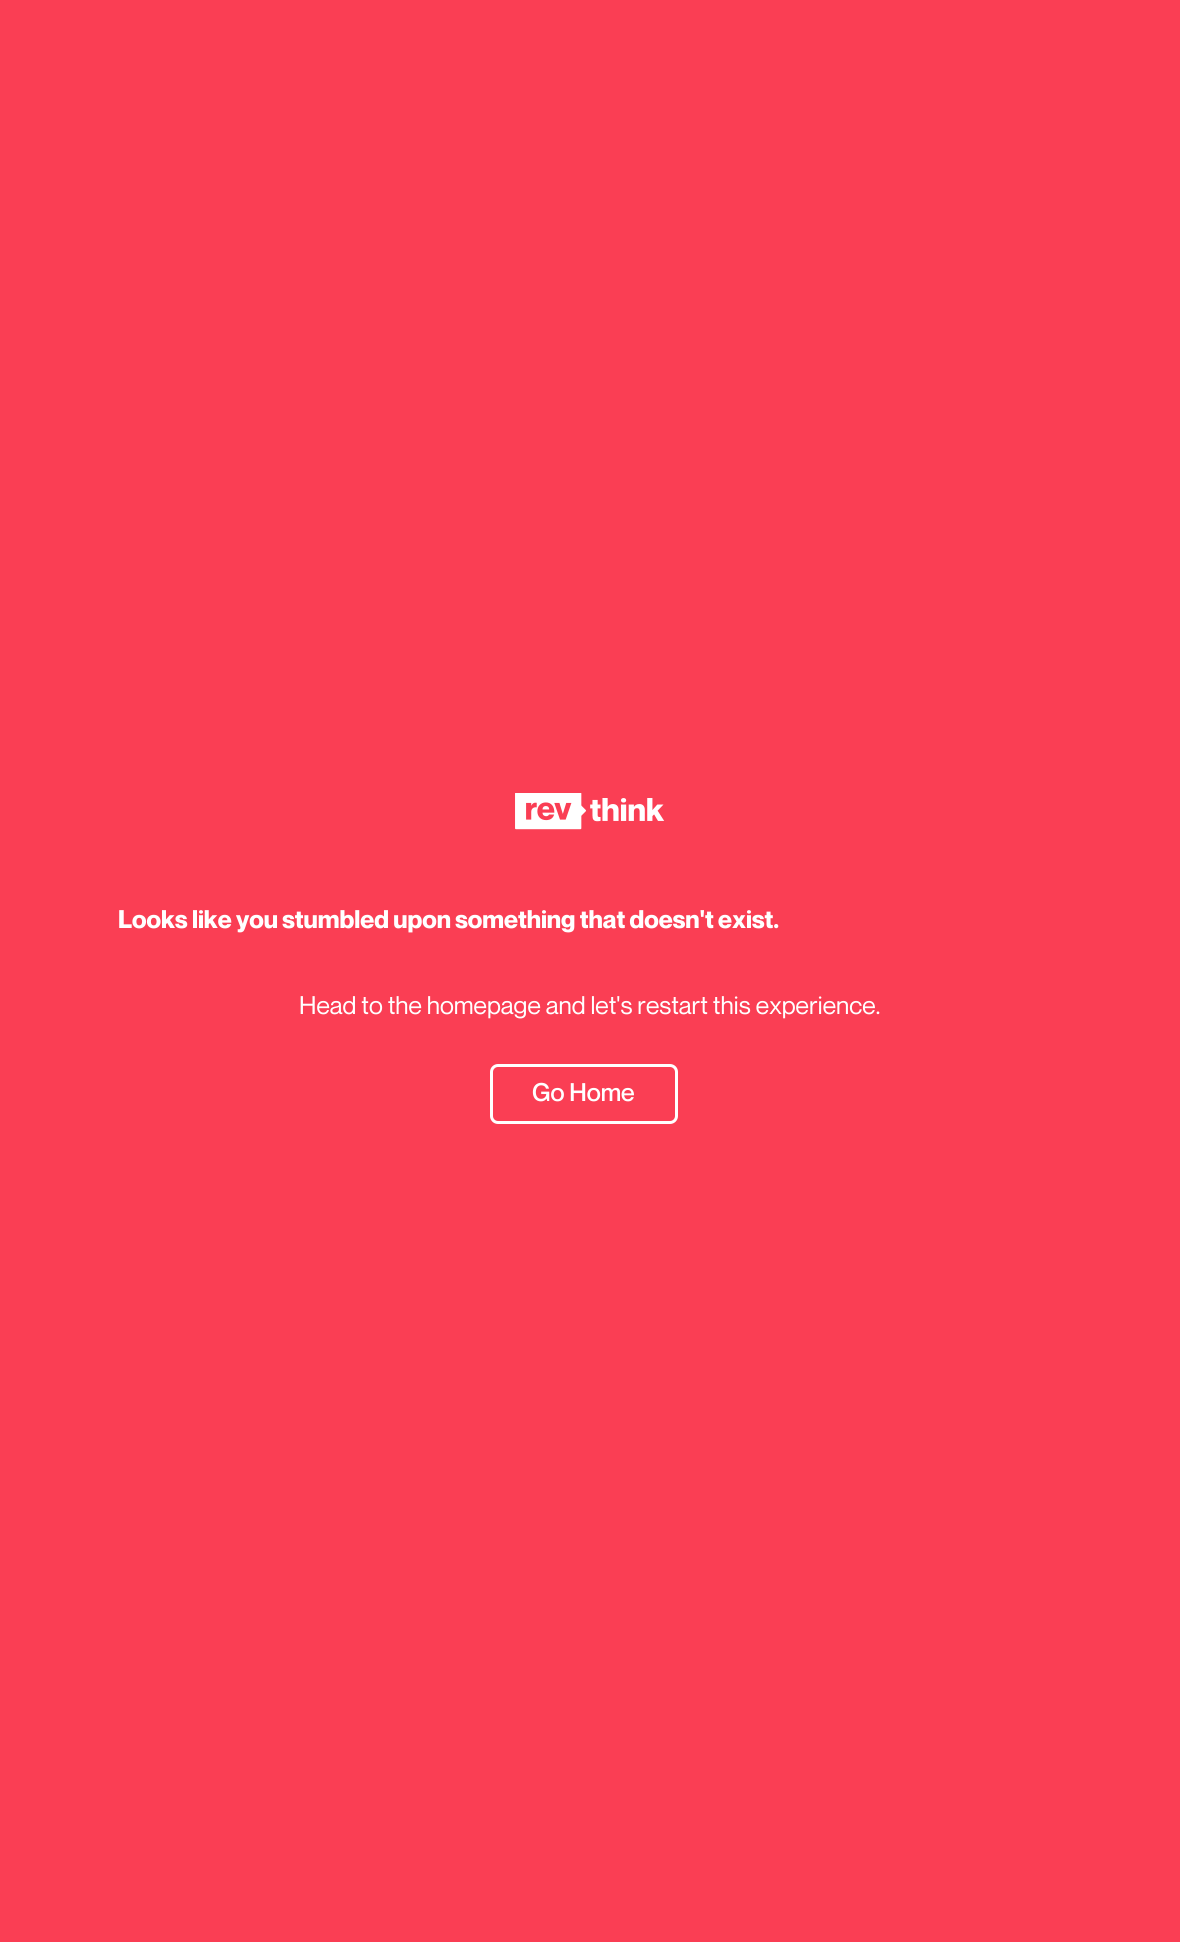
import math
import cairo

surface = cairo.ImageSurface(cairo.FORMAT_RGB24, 1180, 1942)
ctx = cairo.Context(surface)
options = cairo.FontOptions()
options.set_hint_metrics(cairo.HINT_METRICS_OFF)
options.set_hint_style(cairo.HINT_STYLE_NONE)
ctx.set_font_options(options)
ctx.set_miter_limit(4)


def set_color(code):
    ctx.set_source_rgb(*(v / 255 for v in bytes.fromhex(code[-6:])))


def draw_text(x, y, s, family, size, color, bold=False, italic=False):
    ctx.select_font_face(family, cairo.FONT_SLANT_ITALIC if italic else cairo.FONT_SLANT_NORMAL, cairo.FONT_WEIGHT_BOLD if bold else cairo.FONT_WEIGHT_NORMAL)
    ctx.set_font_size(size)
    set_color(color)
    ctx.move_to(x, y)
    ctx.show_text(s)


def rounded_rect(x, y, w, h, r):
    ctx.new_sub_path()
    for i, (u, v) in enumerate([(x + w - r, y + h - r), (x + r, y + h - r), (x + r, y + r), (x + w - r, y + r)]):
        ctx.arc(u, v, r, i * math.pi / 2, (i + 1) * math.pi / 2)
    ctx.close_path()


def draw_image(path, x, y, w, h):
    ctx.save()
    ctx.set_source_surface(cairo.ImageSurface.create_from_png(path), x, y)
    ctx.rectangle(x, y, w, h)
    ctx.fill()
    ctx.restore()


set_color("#fa3e54")
ctx.paint()
draw_image("assets/img1.png", 515, 793, 150, 37)
draw_text(118, 928, "Looks like you stumbled upon something that doesn't exist.", "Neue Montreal", 25, "#ffffff", bold=True)
draw_text(299, 1014, "Head to the homepage and let's restart this experience.", "Neue Montreal", 25, "#ffffff")
rounded_rect(491.5, 1065.5, 185, 57, 6.5)
ctx.set_line_width(3)
ctx.stroke()
draw_text(532, 1101, "Go Home", "Neue Montreal Medium", 25, "#ffffff")
surface.write_to_png("output.png")
